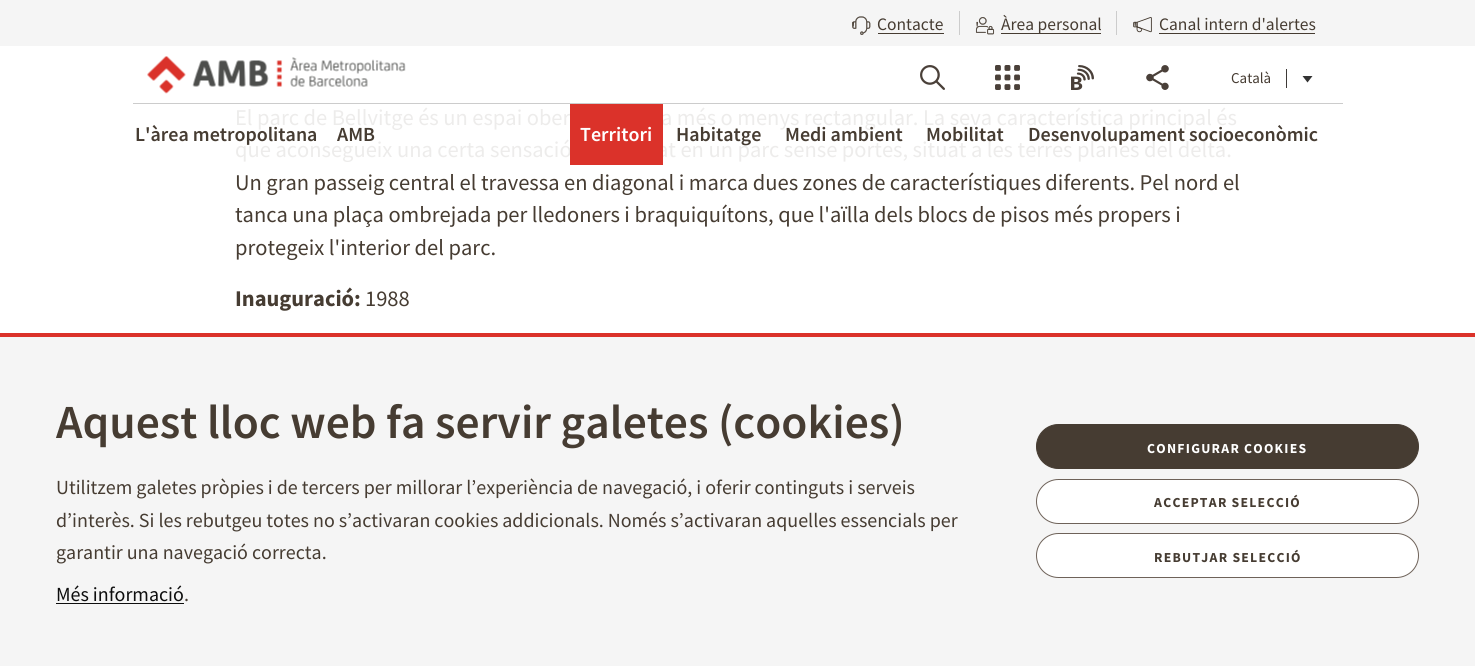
import math
import cairo

surface = cairo.ImageSurface(cairo.FORMAT_RGB24, 1475, 666)
ctx = cairo.Context(surface)
options = cairo.FontOptions()
options.set_hint_metrics(cairo.HINT_METRICS_OFF)
options.set_hint_style(cairo.HINT_STYLE_NONE)
ctx.set_font_options(options)
ctx.set_miter_limit(4)


def set_color(code):
    ctx.set_source_rgb(*(v / 255 for v in bytes.fromhex(code[-6:])))


def draw_text(x, y, s, family, size, color, bold=False, italic=False):
    ctx.select_font_face(family, cairo.FONT_SLANT_ITALIC if italic else cairo.FONT_SLANT_NORMAL, cairo.FONT_WEIGHT_BOLD if bold else cairo.FONT_WEIGHT_NORMAL)
    ctx.set_font_size(size)
    set_color(color)
    ctx.move_to(x, y)
    ctx.show_text(s)


def draw_spaced(x, y, s, letter, word):
    ctx.move_to(x, y)
    for ch in s:
        ctx.show_text(ch)
        ctx.rel_move_to(letter + word * (ch == ' '), 0)


def fill_rect(x, y, w, h, color):
    set_color(color)
    ctx.rectangle(x, y, w, h)
    ctx.fill()


def rounded_rect(x, y, w, h, r):
    ctx.new_sub_path()
    for i, (u, v) in enumerate([(x + w - r, y + h - r), (x + r, y + h - r), (x + r, y + r), (x + w - r, y + r)]):
        ctx.arc(u, v, r, i * math.pi / 2, (i + 1) * math.pi / 2)
    ctx.close_path()


def draw_image(path, x, y, w, h):
    ctx.save()
    ctx.set_source_surface(cairo.ImageSurface.create_from_png(path), x, y)
    ctx.rectangle(x, y, w, h)
    ctx.fill()
    ctx.restore()


set_color("#ffffff")
ctx.paint()
fill_rect(0, 0, 1475, 46, "#f5f5f5")
fill_rect(959, 11, 1, 24, "#cccccc")
draw_image("assets/img1.png", 852, 16, 19, 19)
draw_text(851, 34, "'", "Source Sans Pro", 17.5, "#463c32")
draw_text(877, 30, "Contacte", "Source Sans Pro", 17.5, "#463c32")
fill_rect(878, 33, 66, 1, "#463c32")
fill_rect(1116, 11, 1, 24, "#cccccc")
draw_image("assets/img2.png", 975, 17, 20, 18)
draw_text(975, 34, "'", "Source Sans Pro", 17.5, "#463c32")
fill_rect(1001, 33, 100, 1, "#463c32")
draw_text(1001, 30, "Àrea personal", "Source Sans Pro", 17.5, "#463c32")
draw_image("assets/img3.png", 1133, 17, 19, 16)
draw_text(1133, 34, "'", "Source Sans Pro", 17.5, "#463c32")
draw_text(1159, 30, "Canal intern d'alertes", "Source Sans Pro", 17.5, "#463c32")
fill_rect(1159, 33, 156, 1, "#463c32")
fill_rect(133, 103, 1210, 1, "#cccccc")
draw_image("assets/img4.png", 147, 56, 259, 38)
draw_image("assets/img5.png", 920, 65, 25, 25)
draw_image("assets/img6.png", 995, 65, 25, 25)
draw_image("assets/img7.png", 1071, 65, 23, 25)
draw_image("assets/img8.png", 1146, 65, 23, 25)
draw_text(1231, 83, "Català", "Source Sans Pro", 15, "#463c32")
fill_rect(1286, 69, 1, 19, "#3e3a37")
set_color("#333333")
ctx.new_path()
ctx.move_to(1302.5, 76)
ctx.line_to(1312.5, 76)
ctx.line_to(1307.5, 82.5)
ctx.close_path()
ctx.fill()
draw_text(235, 125, "El parc de Bellvitge és un espai ober", "Source Sans Pro", 22.5, "#edeceb")
draw_text(661, 125, "a més o menys rectangular. La seva característica principal és", "Source Sans Pro", 22.5, "#edeceb")
draw_text(235, 157, "que aconsegueix una certa sensació", "Source Sans Pro", 22.5, "#edeceb")
draw_text(657, 157, "at en un parc sense portes, situat a les terres planes del delta.", "Source Sans Pro", 22.5, "#edeceb")
draw_text(235, 190, "Un gran passeig central el travessa en diagonal i marca dues zones de característiques diferents. Pel nord el", "Source Sans Pro", 22.5, "#463c32")
draw_text(235, 222, "tanca una plaça ombrejada per lledoners i braquiquítons, que l'aïlla dels blocs de pisos més propers i", "Source Sans Pro", 22.5, "#463c32")
draw_text(235, 255, "protegeix l'interior del parc.", "Source Sans Pro", 22.5, "#463c32")
draw_text(235, 306, "Inauguració:", "Source Sans Pro", 22.5, "#463c32", bold=True)
draw_text(365, 306, "1988", "Source Sans Pro", 22.5, "#463c32")
draw_text(135, 141, "L'àrea metropolitana", "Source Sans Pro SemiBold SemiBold", 20, "#463c32")
draw_text(337, 141, "AMB", "Source Sans Pro SemiBold SemiBold", 20, "#463c32")
fill_rect(570, 104, 93, 61, "#db322a")
draw_text(580, 141, "Territori", "Source Sans Pro SemiBold SemiBold", 20, "#ffffff")
draw_text(676, 141, "Habitatge", "Source Sans Pro SemiBold SemiBold", 20, "#463c32")
draw_text(785, 141, "Medi ambient", "Source Sans Pro SemiBold SemiBold", 20, "#463c32")
draw_text(926, 141, "Mobilitat", "Source Sans Pro SemiBold SemiBold", 20, "#463c32")
draw_text(1028, 141, "Desenvolupament socioeconòmic", "Source Sans Pro SemiBold SemiBold", 20, "#463c32")
fill_rect(0, 337, 1475, 329, "#f5f5f5")
fill_rect(0, 333, 1475, 4, "#db322a")
draw_text(56, 438, "Aquest lloc web fa servir galetes (cookies)", "Source Sans Pro SemiBold SemiBold", 47.5, "#463c32")
draw_text(56, 494, "Utilitzem galetes pròpies i de tercers per millorar l’experiència de navegació, i oferir continguts i serveis", "Source Sans Pro", 20, "#463c32")
draw_text(56, 527, "d’interès. Si les rebutgeu totes no s’activaran cookies addicionals. Només s’activaran aquelles essencials per", "Source Sans Pro", 20, "#463c32")
draw_text(56, 559, "garantir una navegació correcta.", "Source Sans Pro", 20, "#463c32")
draw_text(56, 601, "Més informació", "Source Sans Pro", 20, "#0e0e0e")
fill_rect(56, 603, 128, 1, "#0e0e0e")
draw_text(184, 601, ".", "Source Sans Pro", 20, "#463c32")
rounded_rect(1036.5, 424.5, 382, 44, 22)
ctx.fill_preserve()
ctx.set_line_width(1)
ctx.stroke()
ctx.select_font_face("Source Sans Pro", cairo.FONT_SLANT_NORMAL, cairo.FONT_WEIGHT_BOLD)
ctx.set_font_size(13.75)
set_color("#ffffff")
draw_spaced(1147, 453, "CONFIGURAR COOKIES", 1.25, 0)
rounded_rect(1036.5, 479.5, 382, 44, 22)
ctx.fill_preserve()
set_color("#6e6259")
ctx.stroke()
set_color("#463c32")
draw_spaced(1154, 507, "ACCEPTAR SELECCIÓ", 1.25, 0)
set_color("#ffffff")
rounded_rect(1036.5, 533.5, 382, 44, 22)
ctx.fill_preserve()
set_color("#6e6259")
ctx.stroke()
set_color("#463c32")
draw_spaced(1154, 562, "REBUTJAR SELECCIÓ", 1.25, 0)
surface.write_to_png("output.png")
